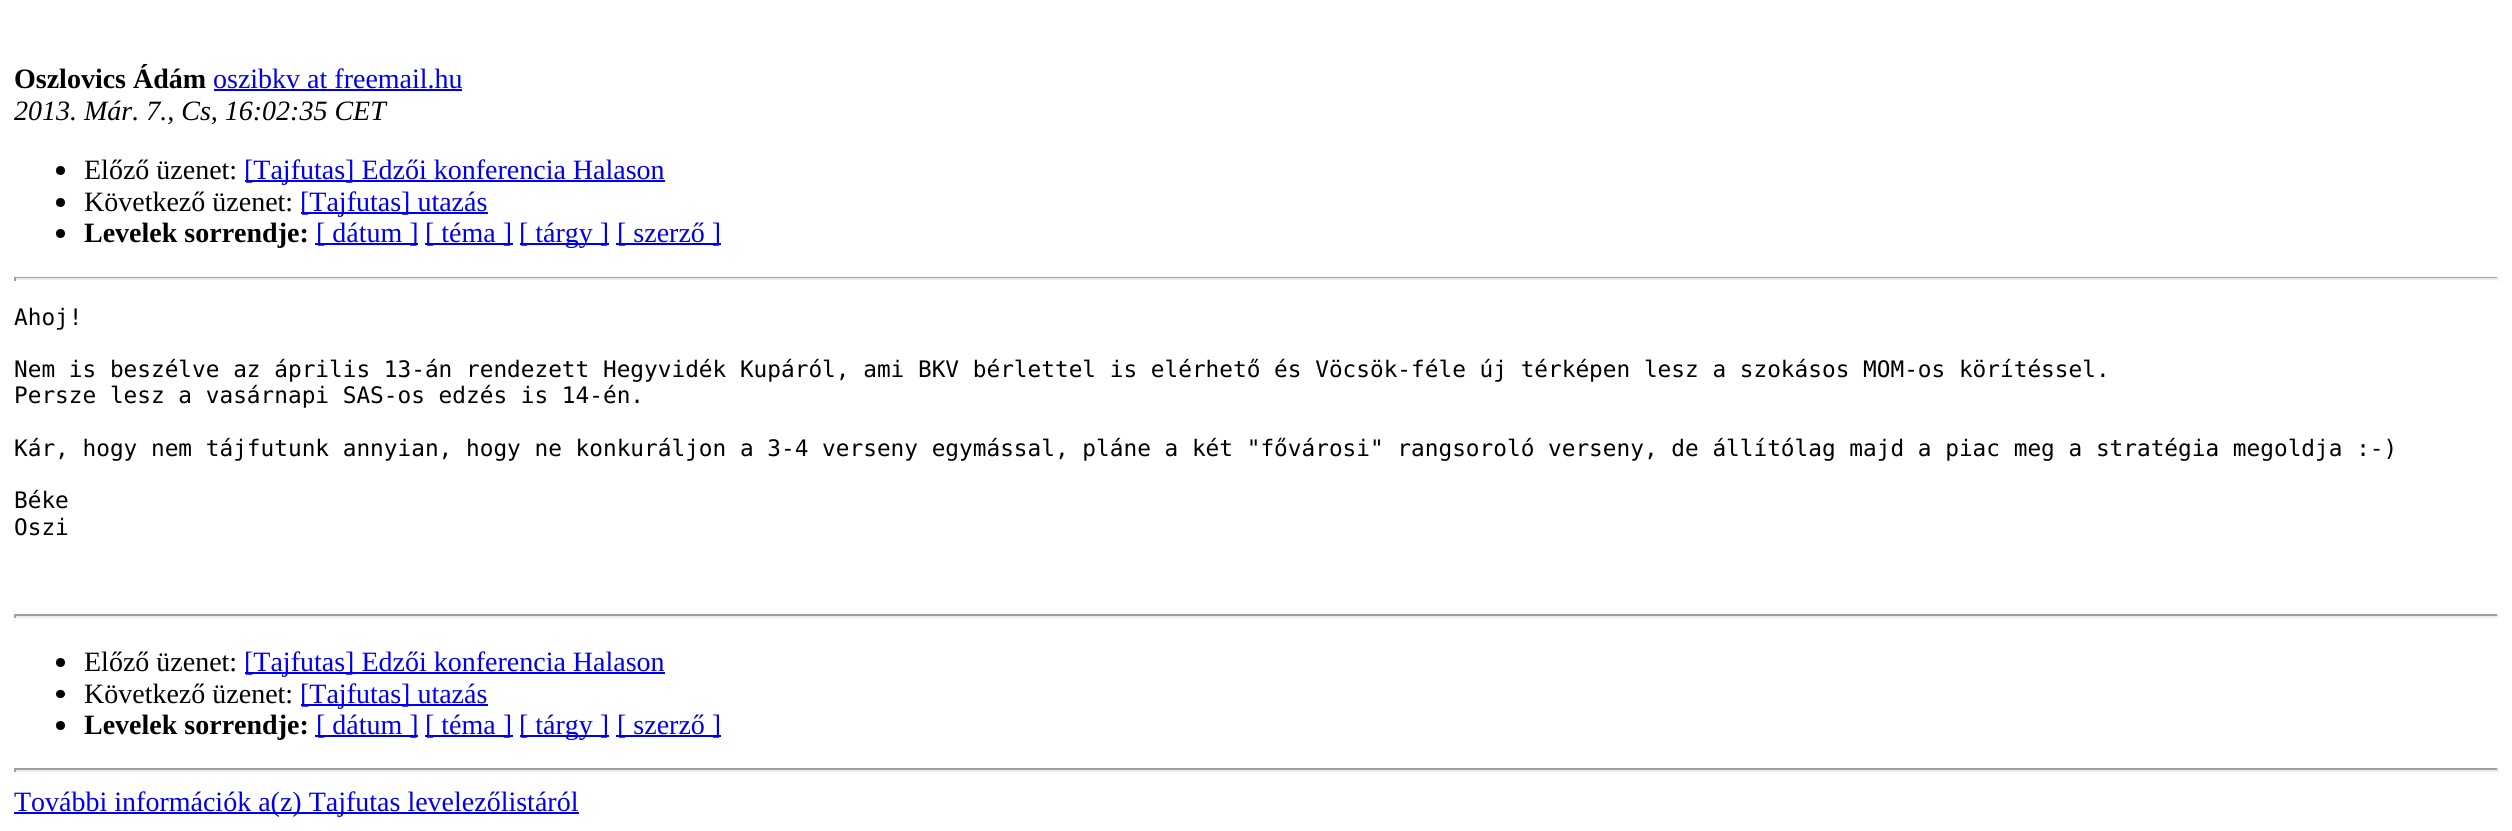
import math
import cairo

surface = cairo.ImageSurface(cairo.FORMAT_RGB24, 2512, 831)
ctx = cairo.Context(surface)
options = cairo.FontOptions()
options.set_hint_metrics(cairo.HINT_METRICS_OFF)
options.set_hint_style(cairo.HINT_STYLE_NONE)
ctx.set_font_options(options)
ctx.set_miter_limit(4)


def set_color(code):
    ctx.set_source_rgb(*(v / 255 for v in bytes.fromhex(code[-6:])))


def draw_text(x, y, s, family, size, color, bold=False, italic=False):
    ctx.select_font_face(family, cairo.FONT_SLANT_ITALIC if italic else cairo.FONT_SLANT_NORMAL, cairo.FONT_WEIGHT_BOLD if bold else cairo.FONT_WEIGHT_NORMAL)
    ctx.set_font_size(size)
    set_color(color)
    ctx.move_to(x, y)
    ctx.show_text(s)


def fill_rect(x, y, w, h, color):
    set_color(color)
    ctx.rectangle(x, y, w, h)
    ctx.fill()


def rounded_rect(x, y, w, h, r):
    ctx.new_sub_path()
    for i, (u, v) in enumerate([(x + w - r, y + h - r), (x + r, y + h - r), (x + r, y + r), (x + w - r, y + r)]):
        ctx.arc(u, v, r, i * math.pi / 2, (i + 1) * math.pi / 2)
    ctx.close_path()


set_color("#ffffff")
ctx.paint()
draw_text(14, 88, "Oszlovics Ádám", "Liberation Serif", 28, "#000000", bold=True)
draw_text(213, 88, "oszibkv at freemail.hu", "Liberation Serif", 28, "#0000ee")
fill_rect(214, 89, 248, 2, "#0000ee")
draw_text(14, 120, "2013. Már. 7., Cs, 16:02:35 CET", "Liberation Serif", 28, "#000000", italic=True)
ctx.new_path()
ctx.arc(60.5, 170.5, 4.5, 0, 2 * math.pi)
ctx.fill()
draw_text(84, 179, "Előző üzenet:", "Liberation Serif", 28, "#000000")
fill_rect(245, 180, 420, 2, "#0000ee")
draw_text(244, 179, "[Tajfutas] Edzői konferencia Halason", "Liberation Serif", 28, "#0000ee")
set_color("#000000")
ctx.new_path()
ctx.arc(60.5, 202.5, 4.5, 0, 2 * math.pi)
ctx.fill()
draw_text(84, 211, "Következő üzenet:", "Liberation Serif", 28, "#000000")
fill_rect(301, 212, 187, 2, "#0000ee")
draw_text(300, 211, "[Tajfutas] utazás", "Liberation Serif", 28, "#0000ee")
set_color("#000000")
ctx.new_path()
ctx.arc(60.5, 233.5, 4.5, 0, 2 * math.pi)
ctx.fill()
draw_text(84, 242, "Levelek sorrendje:", "Liberation Serif", 28, "#000000", bold=True)
fill_rect(315, 243, 103, 2, "#0000ee")
draw_text(316, 242, "[ dátum ]", "Liberation Serif", 28, "#0000ee")
fill_rect(425, 243, 88, 2, "#0000ee")
draw_text(425, 242, "[ téma ]", "Liberation Serif", 28, "#0000ee")
fill_rect(520, 243, 89, 2, "#0000ee")
draw_text(519, 242, "[ tárgy ]", "Liberation Serif", 28, "#0000ee")
fill_rect(616, 243, 105, 2, "#0000ee")
draw_text(617, 242, "[ szerző ]", "Liberation Serif", 28, "#0000ee")
fill_rect(14, 277, 2485, 1, "#9f9f9f")
fill_rect(2497, 277, 2, 4, "#eeeeee")
fill_rect(14, 278, 2485, 2, "#eeeeee")
fill_rect(14, 277, 2, 4, "#9f9f9f")
draw_text(14, 325, "Ahoj!", "DejaVu Sans Mono", 22.75, "#000000")
draw_text(14, 377, "Nem is beszélve az április 13-án rendezett Hegyvidék Kupáról, ami BKV bérlettel is elérhető és Vöcsök-féle új térképen lesz a szokásos MOM-os körítéssel.", "DejaVu Sans Mono", 22.75, "#000000")
draw_text(14, 403, "Persze lesz a vasárnapi SAS-os edzés is 14-én.", "DejaVu Sans Mono", 22.75, "#000000")
draw_text(14, 456, "Kár, hogy nem tájfutunk annyian, hogy ne konkuráljon a 3-4 verseny egymással, pláne a két \"fővárosi\" rangsoroló verseny, de állítólag majd a piac meg a stratégia megoldja :-)", "DejaVu Sans Mono", 22.75, "#000000")
draw_text(14, 508, "Béke", "DejaVu Sans Mono", 22.75, "#000000")
draw_text(14, 535, "Oszi", "DejaVu Sans Mono", 22.75, "#000000")
fill_rect(14, 614, 2485, 2, "#9f9f9f")
fill_rect(2497, 614, 2, 4, "#eeeeee")
fill_rect(14, 616, 2485, 2, "#eeeeee")
fill_rect(14, 614, 2, 4, "#9f9f9f")
set_color("#000000")
ctx.new_path()
ctx.arc(60.5, 662.5, 4.5, 0, 2 * math.pi)
ctx.fill()
draw_text(84, 671, "Előző üzenet:", "Liberation Serif", 28, "#000000")
fill_rect(245, 672, 420, 2, "#0000ee")
draw_text(244, 671, "[Tajfutas] Edzői konferencia Halason", "Liberation Serif", 28, "#0000ee")
set_color("#000000")
rounded_rect(56, 690, 9, 8, 4)
ctx.fill()
draw_text(84, 703, "Következő üzenet:", "Liberation Serif", 28, "#000000")
fill_rect(301, 704, 187, 2, "#0000ee")
draw_text(300, 703, "[Tajfutas] utazás", "Liberation Serif", 28, "#0000ee")
set_color("#000000")
ctx.new_path()
ctx.arc(60.5, 725.5, 4.5, 0, 2 * math.pi)
ctx.fill()
draw_text(84, 734, "Levelek sorrendje:", "Liberation Serif", 28, "#000000", bold=True)
fill_rect(315, 735, 103, 2, "#0000ee")
draw_text(316, 734, "[ dátum ]", "Liberation Serif", 28, "#0000ee")
fill_rect(425, 735, 88, 2, "#0000ee")
draw_text(425, 734, "[ téma ]", "Liberation Serif", 28, "#0000ee")
fill_rect(520, 735, 89, 2, "#0000ee")
draw_text(519, 734, "[ tárgy ]", "Liberation Serif", 28, "#0000ee")
fill_rect(616, 735, 105, 2, "#0000ee")
draw_text(617, 734, "[ szerző ]", "Liberation Serif", 28, "#0000ee")
fill_rect(14, 768, 2485, 2, "#9f9f9f")
fill_rect(2497, 768, 2, 4, "#eeeeee")
fill_rect(14, 770, 2485, 2, "#eeeeee")
fill_rect(14, 768, 2, 4, "#9f9f9f")
fill_rect(14, 812, 565, 2, "#0000ee")
draw_text(14, 811, "További információk a(z) Tajfutas levelezőlistáról", "Liberation Serif", 28, "#0000ee")
surface.write_to_png("output.png")
